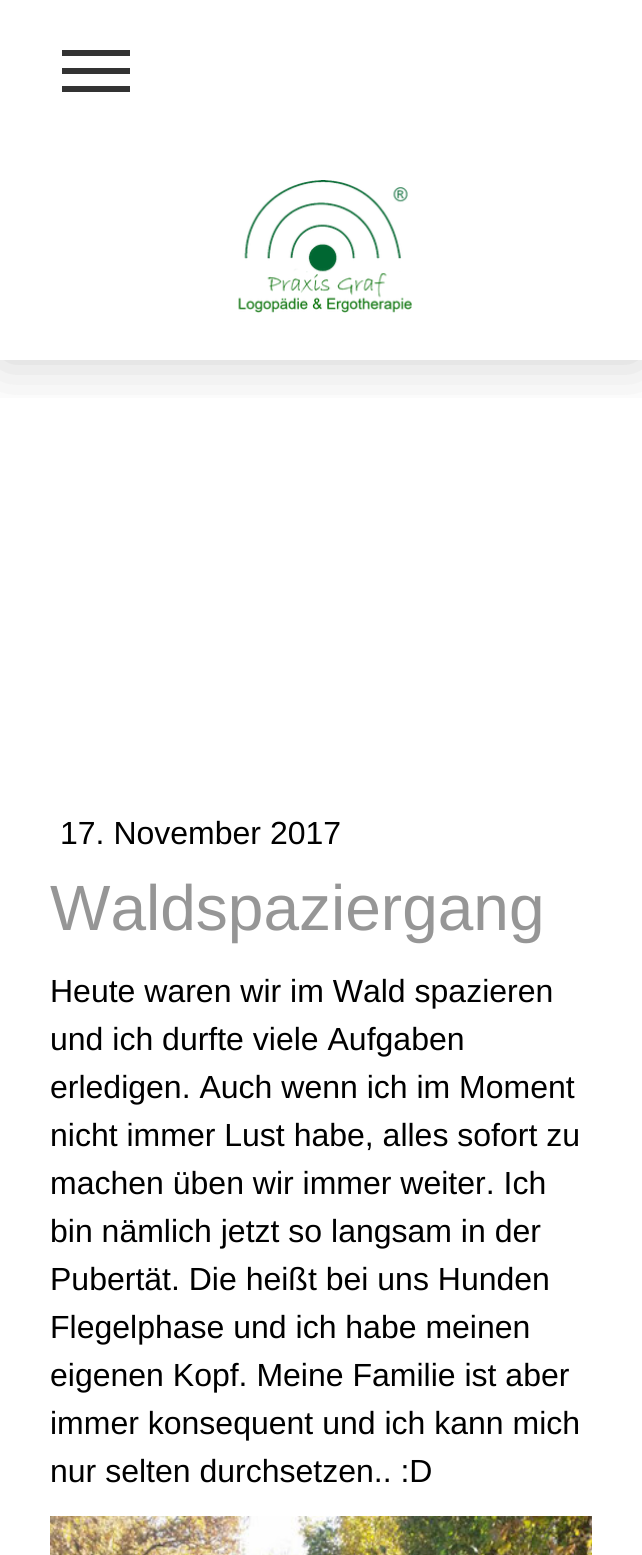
import math
import cairo

surface = cairo.ImageSurface(cairo.FORMAT_RGB24, 642, 1555)
ctx = cairo.Context(surface)
options = cairo.FontOptions()
options.set_hint_metrics(cairo.HINT_METRICS_OFF)
options.set_hint_style(cairo.HINT_STYLE_NONE)
ctx.set_font_options(options)
ctx.set_miter_limit(4)


def set_color(code):
    ctx.set_source_rgb(*(v / 255 for v in bytes.fromhex(code[-6:])))


def draw_text(x, y, s, family, size, color, bold=False, italic=False):
    ctx.select_font_face(family, cairo.FONT_SLANT_ITALIC if italic else cairo.FONT_SLANT_NORMAL, cairo.FONT_WEIGHT_BOLD if bold else cairo.FONT_WEIGHT_NORMAL)
    ctx.set_font_size(size)
    set_color(color)
    ctx.move_to(x, y)
    ctx.show_text(s)


def fill_rect(x, y, w, h, color):
    set_color(color)
    ctx.rectangle(x, y, w, h)
    ctx.fill()


def rounded_rect(x, y, w, h, r):
    ctx.new_sub_path()
    for i, (u, v) in enumerate([(x + w - r, y + h - r), (x + r, y + h - r), (x + r, y + r), (x + w - r, y + r)]):
        ctx.arc(u, v, r, i * math.pi / 2, (i + 1) * math.pi / 2)
    ctx.close_path()


def draw_shadow(x, y, w, h, r, blur, alpha):
    ctx.push_group_with_content(cairo.CONTENT_ALPHA)
    ctx.set_operator(cairo.OPERATOR_SOURCE)
    for i in range(15, -16, -2):
        e = blur * i / 6
        if min(w, h) + 2 * e > 0:
            ctx.set_source_rgba(0, 0, 0, alpha * math.erfc((i - 1) / 8.5) / 2)
            rounded_rect(x - e, y - e, w + 2 * e, h + 2 * e, max(0, min(r + e + blur * .6, min(w, h) / 2 + e)))
            ctx.fill()
    ctx.mask(ctx.pop_group())


def draw_image(path, x, y, w, h):
    ctx.save()
    ctx.set_source_surface(cairo.ImageSurface.create_from_png(path), x, y)
    ctx.rectangle(x, y, w, h)
    ctx.fill()
    ctx.restore()


set_color("#ffffff")
ctx.paint()
ctx.save()
ctx.rectangle(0, 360, 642, 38)
ctx.clip()
set_color("#000000")
draw_shadow(0, 150, 642, 210, 0, 30, 0.2)
ctx.restore()
fill_rect(0, 101, 642, 49, "#ffffff")
fill_rect(62, 68, 68, 6, "#333333")
fill_rect(62, 50, 68, 6, "#333333")
fill_rect(62, 86, 68, 6, "#333333")
draw_image("assets/img1.png", 238, 180, 174, 133)
draw_text(60, 844, "17. November 2017", "Liberation Sans", 32, "#000000")
draw_text(50, 930, "Waldspaziergang", "Liberation Sans", 64, "#969696")
draw_text(50, 1002, "Heute waren wir im Wald spazieren", "Liberation Sans", 32, "#000000")
draw_text(50, 1050, "und ich durfte viele Aufgaben", "Liberation Sans", 32, "#000000")
draw_text(50, 1098, "erledigen. Auch wenn ich im Moment", "Liberation Sans", 32, "#000000")
draw_text(50, 1146, "nicht immer Lust habe, alles sofort zu", "Liberation Sans", 32, "#000000")
draw_text(50, 1194, "machen üben wir immer weiter. Ich", "Liberation Sans", 32, "#000000")
draw_text(50, 1242, "bin nämlich jetzt so langsam in der", "Liberation Sans", 32, "#000000")
draw_text(50, 1290, "Pubertät. Die heißt bei uns Hunden", "Liberation Sans", 32, "#000000")
draw_text(50, 1338, "Flegelphase und ich habe meinen", "Liberation Sans", 32, "#000000")
draw_text(50, 1386, "eigenen Kopf. Meine Familie ist aber", "Liberation Sans", 32, "#000000")
draw_text(50, 1434, "immer konsequent und ich kann mich", "Liberation Sans", 32, "#000000")
draw_text(50, 1482, "nur selten durchsetzen.. :D", "Liberation Sans", 32, "#000000")
draw_image("assets/img2.png", 50, 1516, 542, 39)
surface.write_to_png("output.png")
